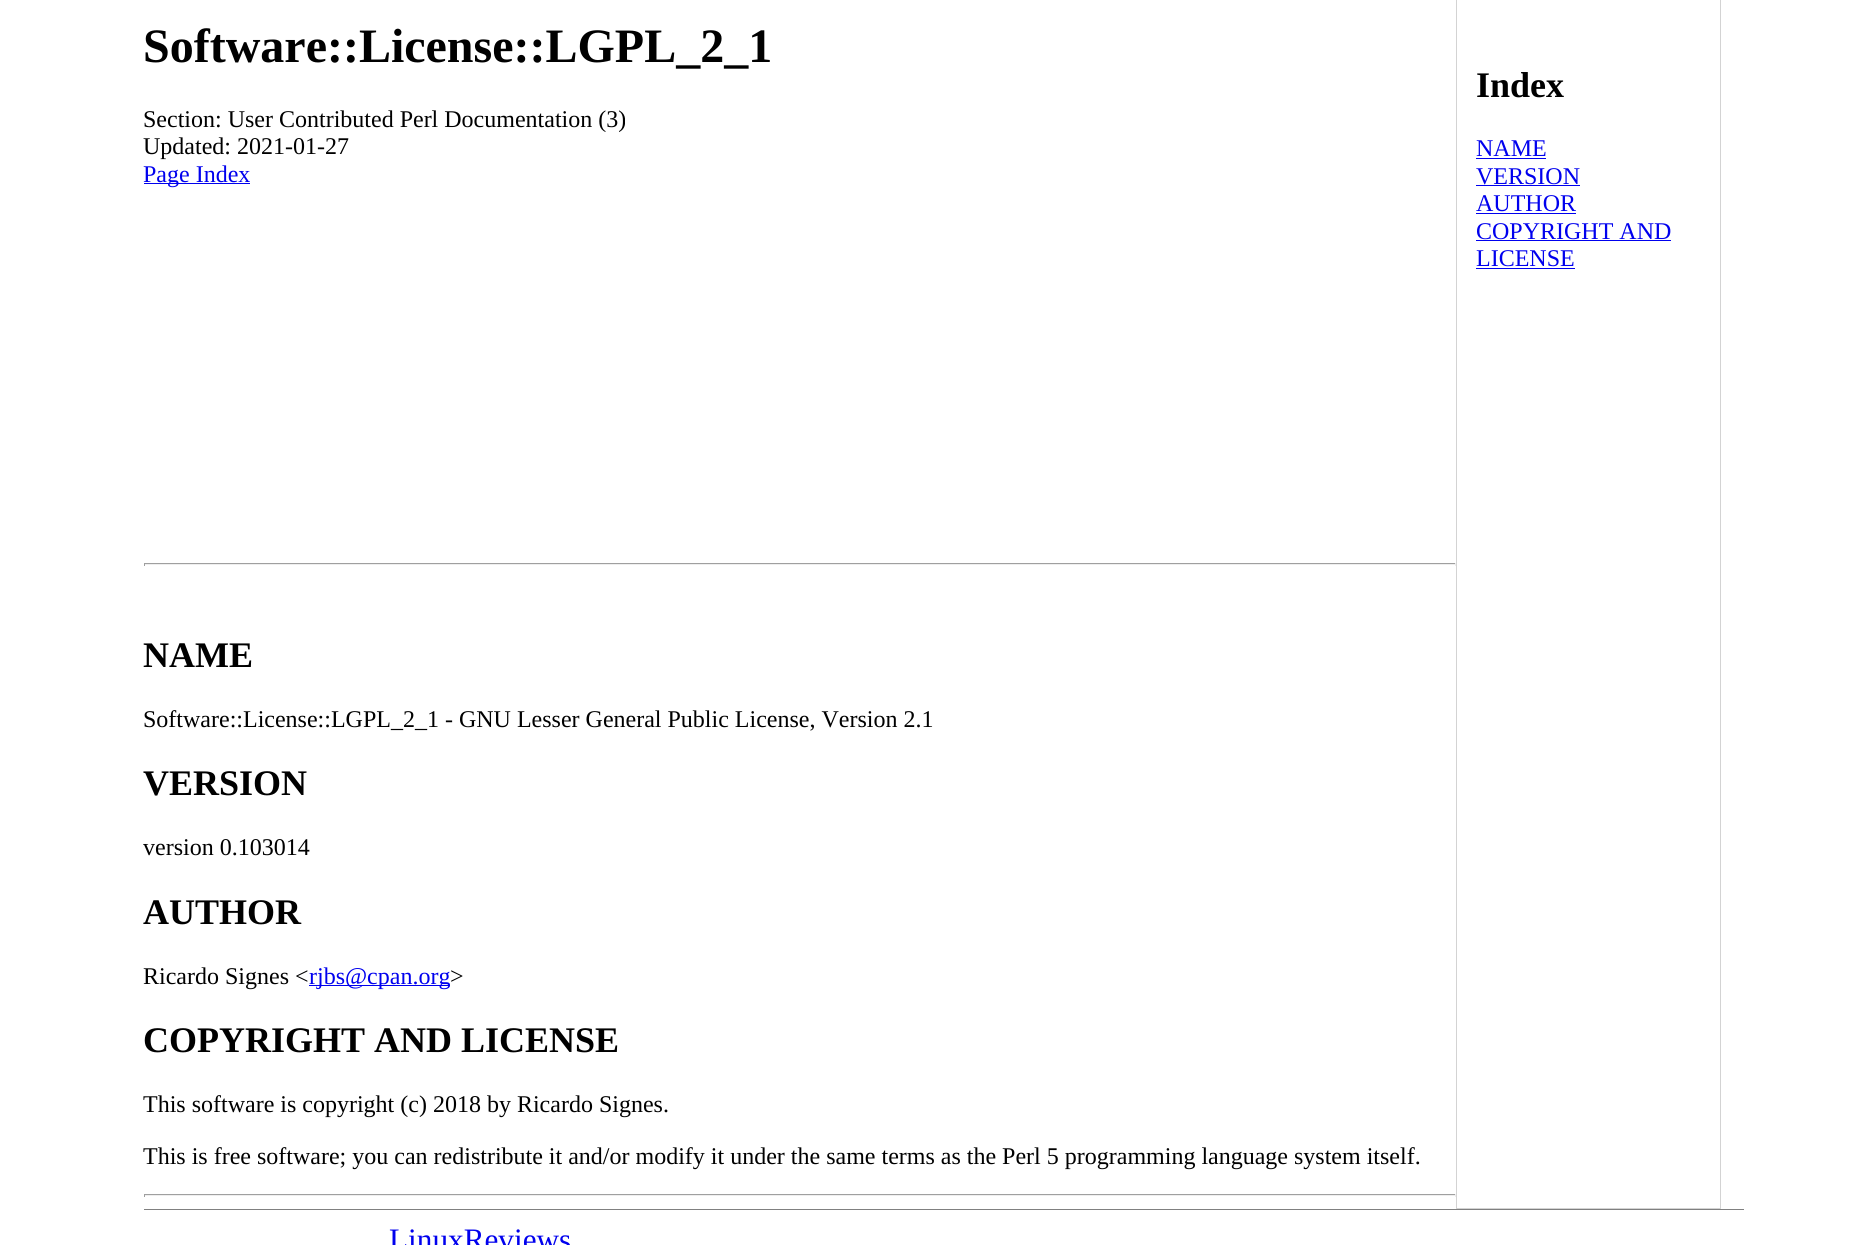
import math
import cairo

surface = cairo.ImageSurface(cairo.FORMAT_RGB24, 1862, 1245)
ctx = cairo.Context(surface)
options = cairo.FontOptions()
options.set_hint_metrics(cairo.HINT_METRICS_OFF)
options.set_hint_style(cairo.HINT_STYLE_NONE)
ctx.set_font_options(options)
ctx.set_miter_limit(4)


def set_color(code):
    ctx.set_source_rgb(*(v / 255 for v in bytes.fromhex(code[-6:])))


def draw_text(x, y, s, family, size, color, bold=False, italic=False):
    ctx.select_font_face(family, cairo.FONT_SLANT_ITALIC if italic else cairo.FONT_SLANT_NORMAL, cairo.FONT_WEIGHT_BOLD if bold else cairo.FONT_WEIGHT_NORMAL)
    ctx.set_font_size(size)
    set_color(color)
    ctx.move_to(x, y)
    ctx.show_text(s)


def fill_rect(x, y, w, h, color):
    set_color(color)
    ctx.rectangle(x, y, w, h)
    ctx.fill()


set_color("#ffffff")
ctx.paint()
draw_text(143, 62, "Software::License::LGPL_2_1", "Liberation Serif", 48, "#000000", bold=True)
draw_text(143, 127, "Section: User Contributed Perl Documentation (3)", "Liberation Serif", 24, "#000000")
draw_text(143, 154, "Updated: 2021-01-27", "Liberation Serif", 24, "#000000")
fill_rect(144, 183, 106, 1, "#0000ee")
draw_text(143, 182, "Page Index", "Liberation Serif", 24, "#0000ee")
fill_rect(144, 563, 1312, 1, "#9f9f9f")
fill_rect(1455, 563, 1, 3, "#eeeeee")
fill_rect(144, 564, 1312, 1, "#eeeeee")
fill_rect(144, 563, 1, 3, "#9f9f9f")
draw_text(143, 667, "NAME", "Liberation Serif", 36, "#000000", bold=True)
draw_text(143, 727, "Software::License::LGPL_2_1 - GNU Lesser General Public License, Version 2.1", "Liberation Serif", 24, "#000000")
draw_text(143, 795, "VERSION", "Liberation Serif", 36, "#000000", bold=True)
draw_text(143, 855, "version 0.103014", "Liberation Serif", 24, "#000000")
draw_text(143, 924, "AUTHOR", "Liberation Serif", 36, "#000000", bold=True)
draw_text(143, 984, "Ricardo Signes <", "Liberation Serif", 24, "#000000")
fill_rect(309, 985, 141, 1, "#0000ee")
draw_text(309, 984, "rjbs@cpan.org", "Liberation Serif", 24, "#0000ee")
draw_text(450, 984, ">", "Liberation Serif", 24, "#000000")
draw_text(143, 1052, "COPYRIGHT AND LICENSE", "Liberation Serif", 36, "#000000", bold=True)
draw_text(143, 1112, "This software is copyright (c) 2018 by Ricardo Signes.", "Liberation Serif", 24, "#000000")
draw_text(143, 1164, "This is free software; you can redistribute it and/or modify it under the same terms as the Perl 5 programming language system itself.", "Liberation Serif", 24, "#000000")
fill_rect(144, 1194, 1312, 1, "#9f9f9f")
fill_rect(1455, 1194, 1, 3, "#eeeeee")
fill_rect(144, 1195, 1312, 1, "#eeeeee")
fill_rect(144, 1194, 1, 3, "#9f9f9f")
ctx.rectangle(1456.5, -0.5, 264, 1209)
set_color("#d3d3d3")
ctx.set_line_width(1)
ctx.stroke()
draw_text(1476, 97, "Index", "Liberation Serif", 36, "#000000", bold=True)
draw_text(1476, 156, "NAME", "Liberation Serif", 24, "#0000ee")
fill_rect(1476, 158, 70, 1, "#0000ee")
draw_text(1476, 184, "VERSION", "Liberation Serif", 24, "#0000ee")
fill_rect(1476, 185, 104, 1, "#0000ee")
draw_text(1476, 211, "AUTHOR", "Liberation Serif", 24, "#0000ee")
fill_rect(1476, 213, 100, 1, "#0000ee")
draw_text(1476, 239, "COPYRIGHT AND", "Liberation Serif", 24, "#0000ee")
fill_rect(1476, 240, 195, 1, "#0000ee")
draw_text(1476, 266, "LICENSE", "Liberation Serif", 24, "#0000ee")
fill_rect(1476, 268, 99, 1, "#0000ee")
fill_rect(144, 1209, 1600, 1, "#808080")
draw_text(389, 1250, "LinuxReviews", "Liberation Serif", 31.25, "#0000ee")
surface.write_to_png("output.png")
